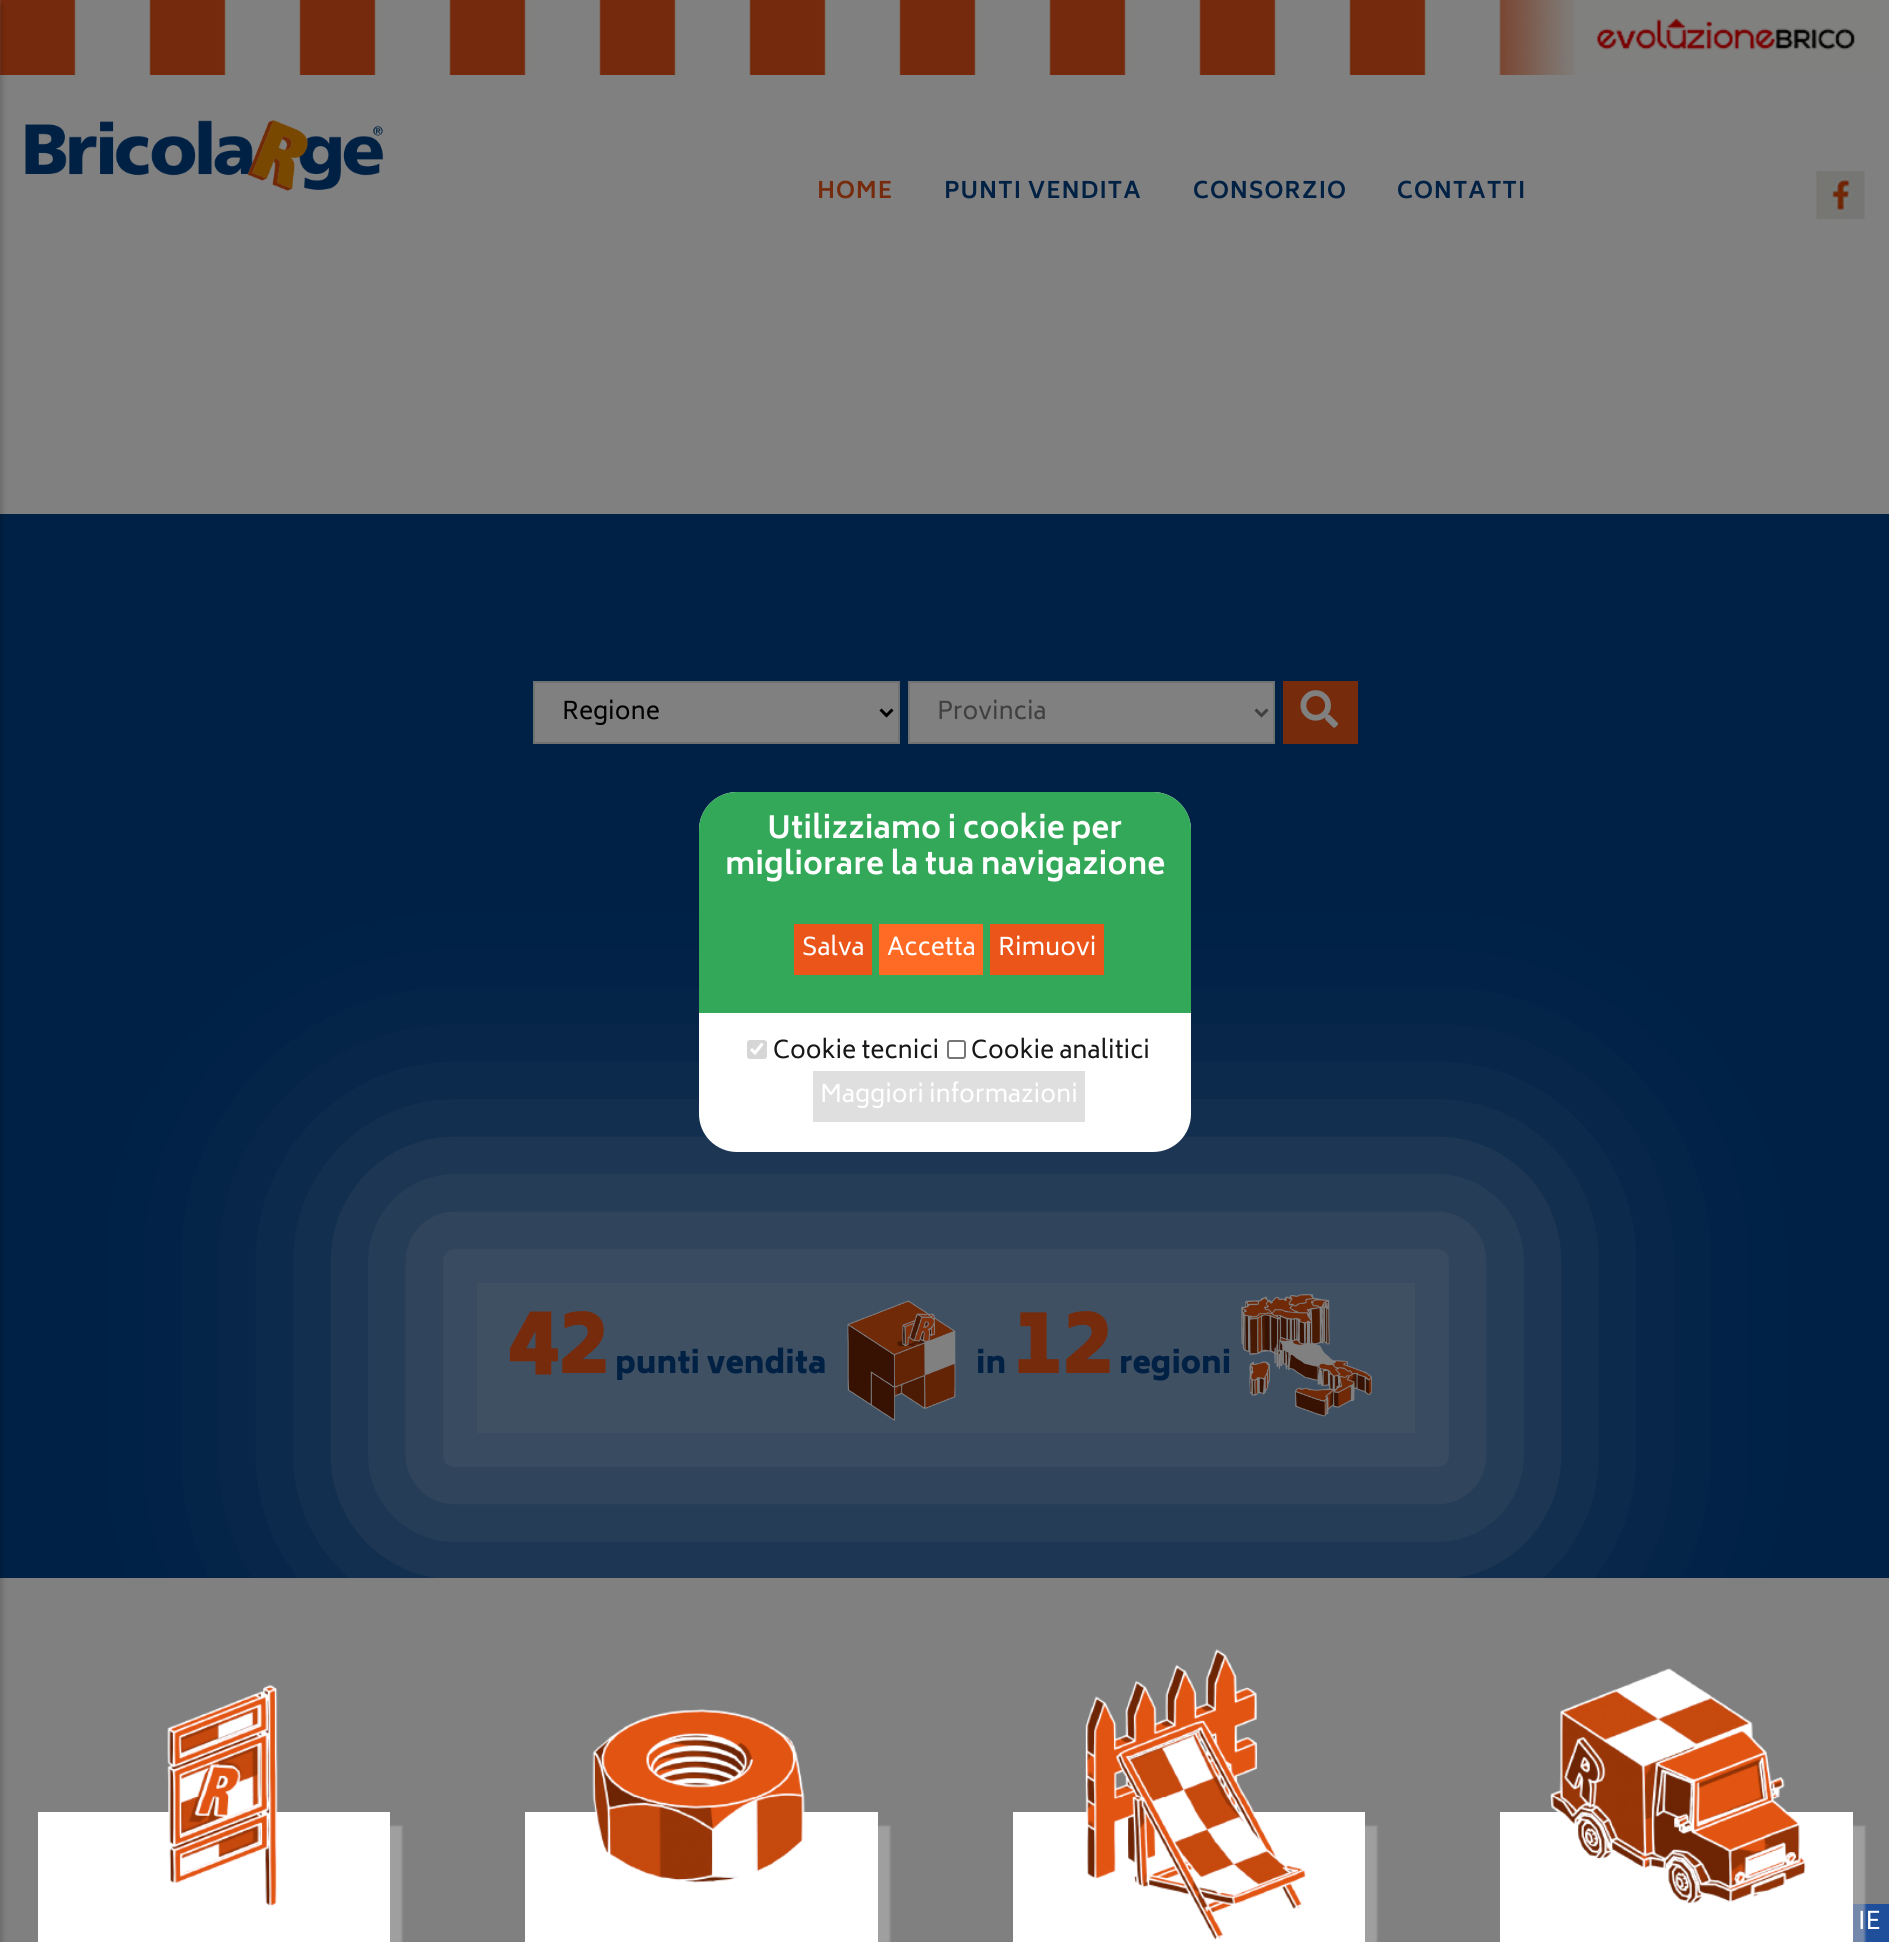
import math
import cairo

surface = cairo.ImageSurface(cairo.FORMAT_RGB24, 1889, 1942)
ctx = cairo.Context(surface)
options = cairo.FontOptions()
options.set_hint_metrics(cairo.HINT_METRICS_OFF)
options.set_hint_style(cairo.HINT_STYLE_NONE)
ctx.set_font_options(options)
ctx.set_miter_limit(4)


def set_color(code):
    ctx.set_source_rgb(*(v / 255 for v in bytes.fromhex(code[-6:])))


def draw_text(x, y, s, family, size, color, bold=False, italic=False):
    ctx.select_font_face(family, cairo.FONT_SLANT_ITALIC if italic else cairo.FONT_SLANT_NORMAL, cairo.FONT_WEIGHT_BOLD if bold else cairo.FONT_WEIGHT_NORMAL)
    ctx.set_font_size(size)
    set_color(color)
    ctx.move_to(x, y)
    ctx.show_text(s)


def draw_spaced(x, y, s, letter, word):
    ctx.move_to(x, y)
    for ch in s:
        ctx.show_text(ch)
        ctx.rel_move_to(letter + word * (ch == ' '), 0)


def fill_rect(x, y, w, h, color):
    set_color(color)
    ctx.rectangle(x, y, w, h)
    ctx.fill()


def rounded_rect(x, y, w, h, r):
    ctx.new_sub_path()
    for i, (u, v) in enumerate([(x + w - r, y + h - r), (x + r, y + h - r), (x + r, y + r), (x + w - r, y + r)]):
        ctx.arc(u, v, r, i * math.pi / 2, (i + 1) * math.pi / 2)
    ctx.close_path()


def draw_shadow(x, y, w, h, r, blur, alpha):
    ctx.push_group_with_content(cairo.CONTENT_ALPHA)
    ctx.set_operator(cairo.OPERATOR_SOURCE)
    for i in range(15, -16, -2):
        e = blur * i / 6
        if min(w, h) + 2 * e > 0:
            ctx.set_source_rgba(0, 0, 0, alpha * math.erfc((i - 1) / 8.5) / 2)
            rounded_rect(x - e, y - e, w + 2 * e, h + 2 * e, max(0, min(r + e + blur * .6, min(w, h) / 2 + e)))
            ctx.fill()
    ctx.mask(ctx.pop_group())


def draw_image(path, x, y, w, h):
    ctx.save()
    ctx.set_source_surface(cairo.ImageSurface.create_from_png(path), x, y)
    ctx.rectangle(x, y, w, h)
    ctx.fill()
    ctx.restore()


set_color("#808080")
ctx.paint()
draw_image("assets/img1.png", 0, 0, 1583, 75)
fill_rect(0, 514, 1889, 1064, "#002146")
set_color("#000000")
draw_shadow(-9, 5, 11, 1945, 0, 3, 0.2)
draw_image("assets/img2.png", 1499, 0, 377, 75)
draw_image("assets/img3.png", 25, 120, 359, 71)
ctx.select_font_face("Biryani", cairo.FONT_SLANT_NORMAL, cairo.FONT_WEIGHT_BOLD)
ctx.set_font_size(22.5)
set_color("#762b0d")
draw_spaced(817, 198, "HOME", 0.9, 0)
set_color("#002144")
draw_spaced(944, 198, "PUNTI VENDITA", 0.9, 0)
draw_spaced(1193, 198, "CONSORZIO", 0.9, 0)
draw_spaced(1397, 198, "CONTATTI", 0.9, 0)
draw_image("assets/img4.png", 1816, 171, 49, 48)
set_color("#808080")
ctx.rectangle(534, 682, 365, 61)
ctx.fill_preserve()
set_color("#6f7173")
ctx.stroke()
ctx.new_path()
ctx.move_to(880.5, 709.5)
ctx.line_to(886.5, 715.5)
ctx.line_to(892.5, 709.5)
set_color("#000000")
ctx.set_line_width(3)
ctx.stroke()
draw_text(562, 719, "Regione", "Biryani", 24, "#000000")
set_color("#808080")
ctx.rectangle(909, 682, 365, 61)
ctx.fill_preserve()
set_color("#6f7173")
ctx.set_line_width(2)
ctx.stroke()
ctx.new_path()
ctx.move_to(1255.5, 709.5)
ctx.line_to(1261.5, 715.5)
ctx.line_to(1267.5, 709.5)
set_color("#404040")
ctx.set_line_width(3)
ctx.stroke()
draw_text(937, 719, "Provincia", "Biryani", 24, "#404040")
fill_rect(1283, 681, 75, 63, "#762b0d")
draw_image("assets/img5.png", 1300, 690, 38, 38)
ctx.save()
ctx.set_fill_rule(cairo.FILL_RULE_EVEN_ODD)
ctx.new_path()
ctx.move_to(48, 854)
ctx.line_to(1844, 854)
ctx.line_to(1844, 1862)
ctx.line_to(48, 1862)
ctx.close_path()
ctx.move_to(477, 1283)
ctx.line_to(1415, 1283)
ctx.line_to(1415, 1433)
ctx.line_to(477, 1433)
ctx.close_path()
ctx.clip()
set_color("#808080")
draw_shadow(387, 1193, 1118, 330, 0, 112.5, 0.6)
ctx.restore()
ctx.set_source_rgba(0.502, 0.502, 0.502, 0.5)
ctx.rectangle(477, 1283, 938, 150)
ctx.fill()
draw_text(509, 1373, "42", "Biryani Black", 90, "#762b0d")
draw_text(615, 1373, "punti vendita", "Biryani Black", 30, "#002144")
draw_image("assets/img6.png", 847, 1300, 109, 121)
draw_text(976, 1373, "in", "Biryani Black", 30, "#002144")
draw_text(1013, 1373, "12", "Biryani Black", 90, "#762b0d")
draw_text(1119, 1373, "regioni", "Biryani Black", 30, "#002144")
draw_image("assets/img7.png", 1241, 1294, 131, 123)
set_color("#b8b8b8")
draw_shadow(50, 1826, 352, 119, 0, 1, 0.55)
fill_rect(38, 1812, 352, 130, "#ffffff")
draw_image("assets/img8.png", 167, 1684, 111, 222)
set_color("#b8b8b8")
draw_shadow(537, 1826, 353, 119, 0, 1, 0.55)
fill_rect(525, 1812, 353, 130, "#ffffff")
draw_image("assets/img9.png", 592, 1709, 213, 174)
set_color("#b8b8b8")
draw_shadow(1025, 1826, 352, 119, 0, 1, 0.55)
fill_rect(1013, 1812, 352, 130, "#ffffff")
draw_image("assets/img10.png", 1085, 1649, 221, 291)
fill_rect(1853, 1904, 36, 38, "#1f4e9b")
set_color("#b8b8b8")
draw_shadow(1512, 1826, 353, 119, 0, 1, 0.55)
fill_rect(1500, 1812, 353, 130, "#ffffff")
draw_image("assets/img11.png", 1550, 1668, 256, 236)
rounded_rect(699, 792, 492, 360, 38)
ctx.fill()
set_color("#33a858")
ctx.new_path()
ctx.move_to(737, 792)
ctx.line_to(1153, 792)
ctx.curve_to(1174, 792, 1191, 809, 1191, 830)
ctx.line_to(1191, 1013)
ctx.line_to(699, 1013)
ctx.line_to(699, 830)
ctx.curve_to(699, 809, 716, 792, 737, 792)
ctx.close_path()
ctx.fill()
draw_text(767, 838, "Utilizziamo i cookie per", "Biryani", 30, "#ffffff", bold=True)
draw_text(725, 874, "migliorare la tua navigazione", "Biryani", 30, "#ffffff", bold=True)
fill_rect(794, 924, 78, 51, "#eb551a")
draw_text(802, 955, "Salva", "Biryani", 24, "#ffffff")
fill_rect(879, 924, 104, 51, "#ff6a24")
draw_text(887, 955, "Accetta", "Biryani", 24, "#ffffff")
fill_rect(990, 924, 114, 51, "#eb551a")
draw_text(998, 955, "Rimuovi", "Biryani", 24, "#ffffff")
set_color("#d6d6d6")
rounded_rect(747, 1040, 20, 19, 3)
ctx.fill()
ctx.new_path()
ctx.move_to(751, 1049)
ctx.line_to(755, 1053)
ctx.line_to(762.5, 1043.5)
set_color("#ffffff")
ctx.set_line_width(3.1)
ctx.stroke()
draw_text(773, 1058, "Cookie tecnici", "Biryani", 24, "#181818")
rounded_rect(948, 1041, 17, 17, 2)
set_color("#767676")
ctx.set_line_width(2)
ctx.stroke()
draw_text(971, 1058, "Cookie analitici", "Biryani", 24, "#181818")
fill_rect(813, 1071, 272, 51, "#dfdfdf")
draw_text(820, 1102, "Maggiori informazioni", "Biryani", 24, "#ffffff")
draw_text(1858, 1929, "IE", "Biryani", 24, "#ffffff")
surface.write_to_png("output.png")
